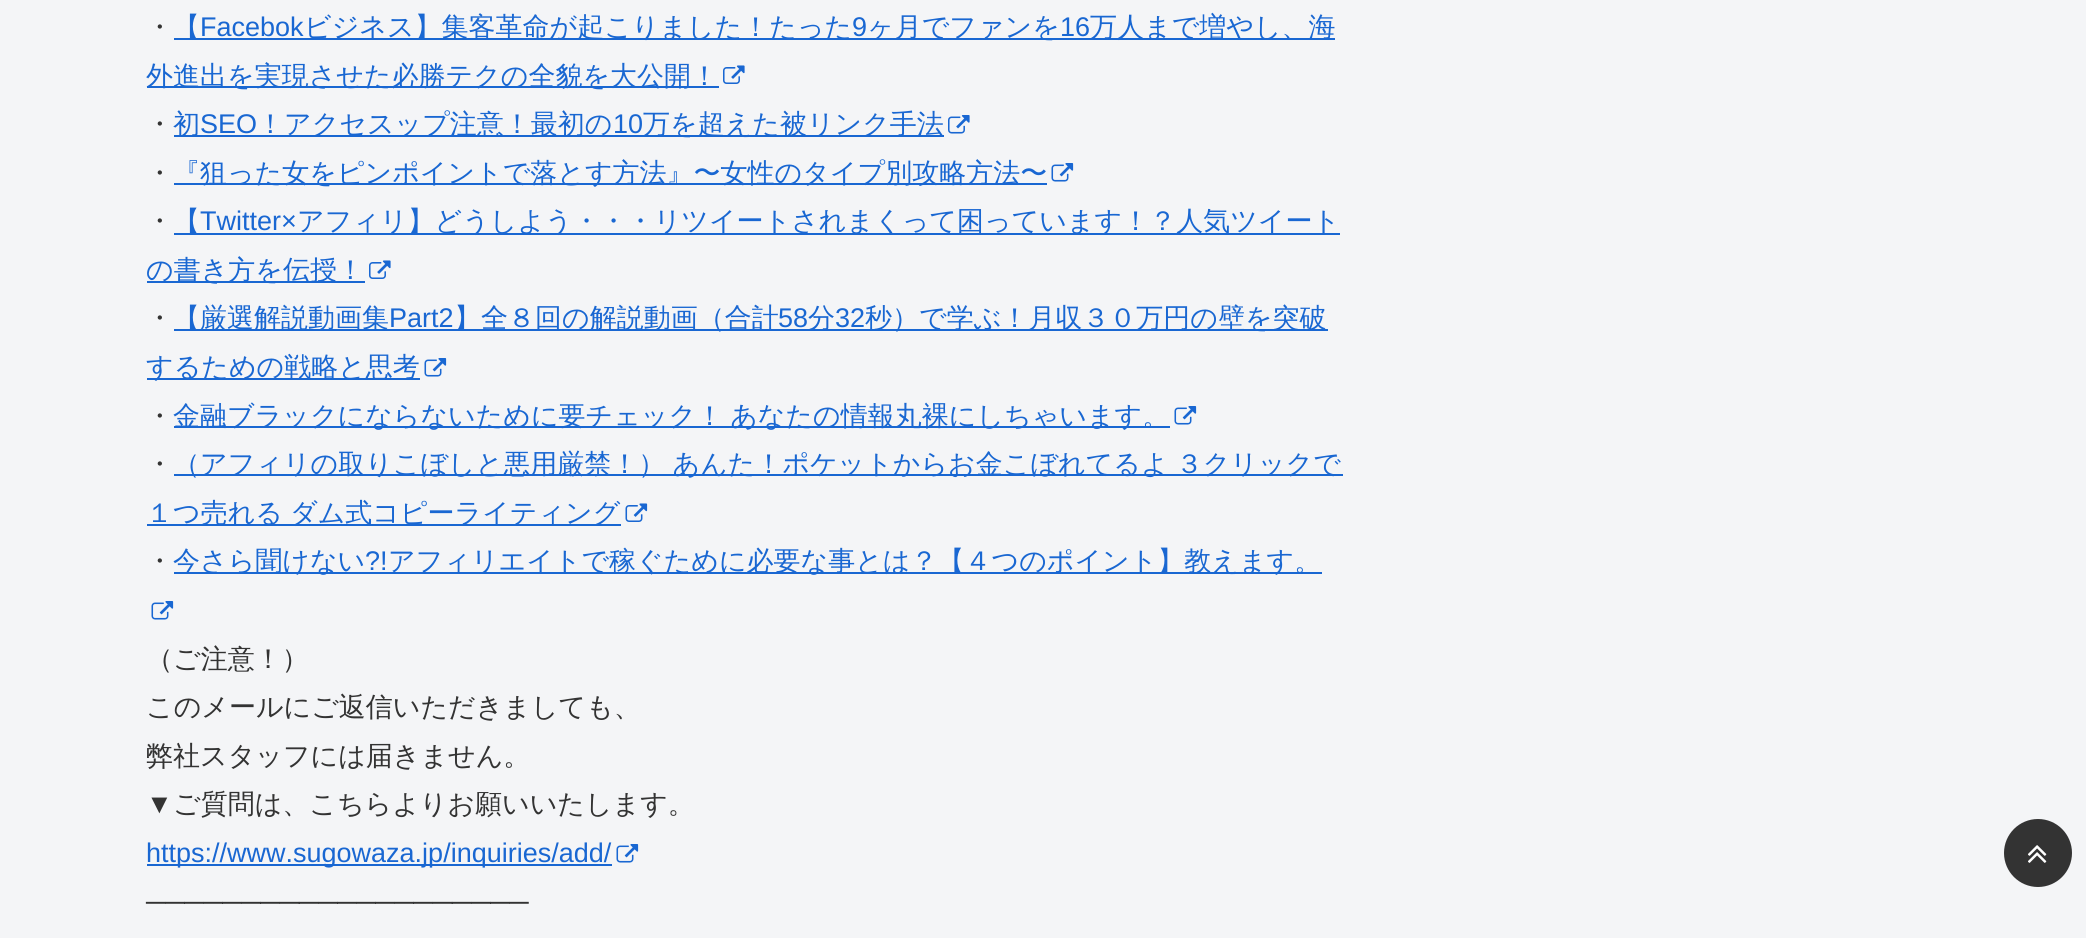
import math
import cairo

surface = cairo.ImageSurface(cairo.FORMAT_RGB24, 2086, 938)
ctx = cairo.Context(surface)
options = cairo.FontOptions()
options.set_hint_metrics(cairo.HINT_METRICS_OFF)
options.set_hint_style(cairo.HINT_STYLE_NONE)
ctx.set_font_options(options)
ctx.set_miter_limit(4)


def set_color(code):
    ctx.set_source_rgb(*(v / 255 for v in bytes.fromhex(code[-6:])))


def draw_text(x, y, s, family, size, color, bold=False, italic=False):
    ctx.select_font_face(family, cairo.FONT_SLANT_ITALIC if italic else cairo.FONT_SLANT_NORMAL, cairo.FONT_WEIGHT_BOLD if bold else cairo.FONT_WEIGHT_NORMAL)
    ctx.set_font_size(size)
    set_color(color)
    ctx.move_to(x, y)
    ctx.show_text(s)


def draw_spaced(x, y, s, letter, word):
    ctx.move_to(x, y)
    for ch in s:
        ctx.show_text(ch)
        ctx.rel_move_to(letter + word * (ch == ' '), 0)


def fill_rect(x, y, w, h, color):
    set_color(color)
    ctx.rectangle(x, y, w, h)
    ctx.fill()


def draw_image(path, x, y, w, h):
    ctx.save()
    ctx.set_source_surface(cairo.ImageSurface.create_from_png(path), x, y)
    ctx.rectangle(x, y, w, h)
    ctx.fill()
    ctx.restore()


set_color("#f4f5f7")
ctx.paint()
fill_rect(174, 38, 1161, 2, "#1967d2")
draw_text(173, 36, "【", "WenQuanYi Zen Hei Medium", 27, "#1967d2")
draw_text(200, 36, "Facebok", "Liberation Sans", 27, "#1967d2")
draw_text(304, 36, "ビジネス】集客革命が起こりました！たった", "WenQuanYi Zen Hei Medium", 27, "#1967d2")
draw_text(852, 36, "9", "Liberation Sans", 27, "#1967d2")
draw_text(867, 36, "ヶ月でファンを", "WenQuanYi Zen Hei Medium", 27, "#1967d2")
draw_text(1060, 36, "16", "Liberation Sans", 27, "#1967d2")
draw_text(1090, 36, "万人まで増やし、海", "WenQuanYi Zen Hei Medium", 27, "#1967d2")
fill_rect(147, 86, 572, 2, "#1967d2")
draw_text(146, 85, "外進出を実現させた必勝テクの全貌を大公開！", "WenQuanYi Zen Hei Medium", 27, "#1967d2")
draw_image("assets/img1.png", 723, 65, 22, 19)
draw_text(146, 36, "・", "WenQuanYi Zen Hei Medium", 27, "#333333")
draw_text(146, 133, "・", "WenQuanYi Zen Hei Medium", 27, "#333333")
fill_rect(174, 135, 770, 2, "#1967d2")
draw_text(173, 133, "初", "WenQuanYi Zen Hei Medium", 27, "#1967d2")
draw_text(200, 133, "SEO", "Liberation Sans", 27, "#1967d2")
draw_text(257, 133, "！アクセスップ注意！最初の", "WenQuanYi Zen Hei Medium", 27, "#1967d2")
draw_text(613, 133, "10", "Liberation Sans", 27, "#1967d2")
draw_text(643, 133, "万を超えた被リンク手法", "WenQuanYi Zen Hei Medium", 27, "#1967d2")
draw_image("assets/img2.png", 948, 115, 22, 19)
draw_text(146, 182, "・", "WenQuanYi Zen Hei Medium", 27, "#333333")
fill_rect(174, 183, 873, 2, "#1967d2")
draw_text(173, 182, "『狙った女をピンポイントで落とす方法』〜女性のタイプ別攻略方法〜", "WenQuanYi Zen Hei Medium", 27, "#1967d2")
draw_image("assets/img3.png", 1051, 163, 23, 19)
fill_rect(174, 233, 1166, 2, "#1967d2")
draw_text(173, 230, "【", "WenQuanYi Zen Hei Medium", 27, "#1967d2")
draw_text(200, 230, "Twitter×", "Liberation Sans", 27, "#1967d2")
draw_text(297, 230, "アフィリ】どうしよう・・・リツイートされまくって困っています！？人気ツイート", "WenQuanYi Zen Hei Medium", 27, "#1967d2")
fill_rect(147, 281, 218, 2, "#1967d2")
draw_text(146, 279, "の書き方を伝授！", "WenQuanYi Zen Hei Medium", 27, "#1967d2")
draw_image("assets/img1.png", 369, 260, 22, 19)
draw_text(146, 230, "・", "WenQuanYi Zen Hei Medium", 27, "#333333")
fill_rect(174, 329, 1154, 2, "#1967d2")
draw_text(173, 327, "【厳選解説動画集", "WenQuanYi Zen Hei Medium", 27, "#1967d2")
draw_text(389, 327, "Part2", "Liberation Sans", 27, "#1967d2")
draw_text(454, 327, "】全８回の解説動画（合計", "WenQuanYi Zen Hei Medium", 27, "#1967d2")
draw_text(778, 327, "58", "Liberation Sans", 27, "#1967d2")
draw_text(808, 327, "分", "WenQuanYi Zen Hei Medium", 27, "#1967d2")
draw_text(835, 327, "32", "Liberation Sans", 27, "#1967d2")
draw_text(865, 327, "秒）で学ぶ！月収３０万円の壁を突破", "WenQuanYi Zen Hei Medium", 27, "#1967d2")
fill_rect(147, 378, 273, 2, "#1967d2")
draw_text(146, 376, "するための戦略と思考", "WenQuanYi Zen Hei Medium", 27, "#1967d2")
draw_image("assets/img3.png", 424, 358, 23, 19)
draw_text(146, 327, "・", "WenQuanYi Zen Hei Medium", 27, "#333333")
draw_text(146, 425, "・", "WenQuanYi Zen Hei Medium", 27, "#333333")
fill_rect(174, 426, 996, 2, "#1967d2")
draw_spaced(173, 425, "金融ブラックにならないために要チェック！ あなたの情報丸裸にしちゃいます。", 0, -1)
draw_image("assets/img3.png", 1174, 406, 23, 19)
fill_rect(174, 474, 1169, 2, "#1967d2")
draw_spaced(173, 473, "（アフィリの取りこぼしと悪用厳禁！） あんた！ポケットからお金こぼれてるよ ３クリックで", 0, -1)
fill_rect(147, 524, 474, 2, "#1967d2")
draw_spaced(146, 522, "１つ売れる ダム式コピーライティング", 0, -1)
draw_image("assets/img4.png", 625, 503, 23, 19)
draw_text(146, 473, "・", "WenQuanYi Zen Hei Medium", 27, "#333333")
draw_text(146, 570, "・", "WenQuanYi Zen Hei Medium", 27, "#333333")
fill_rect(174, 572, 1148, 2, "#1967d2")
draw_text(173, 570, "今さら聞けない", "WenQuanYi Zen Hei Medium", 27, "#1967d2")
draw_text(365, 570, "?!", "Liberation Sans", 27, "#1967d2")
draw_text(388, 570, "アフィリエイトで稼ぐために必要な事とは？【４つのポイント】教えます。", "WenQuanYi Zen Hei Medium", 27, "#1967d2")
draw_image("assets/img3.png", 151, 601, 23, 19)
draw_text(146, 668, "（ご注意！）", "WenQuanYi Zen Hei Medium", 27, "#333333")
draw_text(146, 716, "このメールにご返信いただきましても、", "WenQuanYi Zen Hei Medium", 27, "#333333")
draw_text(146, 765, "弊社スタッフには届きません。", "WenQuanYi Zen Hei Medium", 27, "#333333")
draw_text(146, 813, "▼", "Liberation Sans", 27, "#333333")
draw_text(173, 813, "ご質問は、こちらよりお願いいたします。", "WenQuanYi Zen Hei Medium", 27, "#333333")
fill_rect(147, 864, 465, 2, "#1967d2")
draw_text(146, 862, "https://www.sugowaza.jp/inquiries/add/", "Liberation Sans", 27, "#1967d2")
draw_image("assets/img3.png", 616, 844, 23, 19)
draw_text(146, 911, "────────────────────", "Liberation Sans", 27, "#333333")
ctx.new_path()
ctx.arc(2038, 853, 34, 0, 2 * math.pi)
ctx.fill()
draw_image("assets/img5.png", 2028, 845, 19, 18)
surface.write_to_png("output.png")
